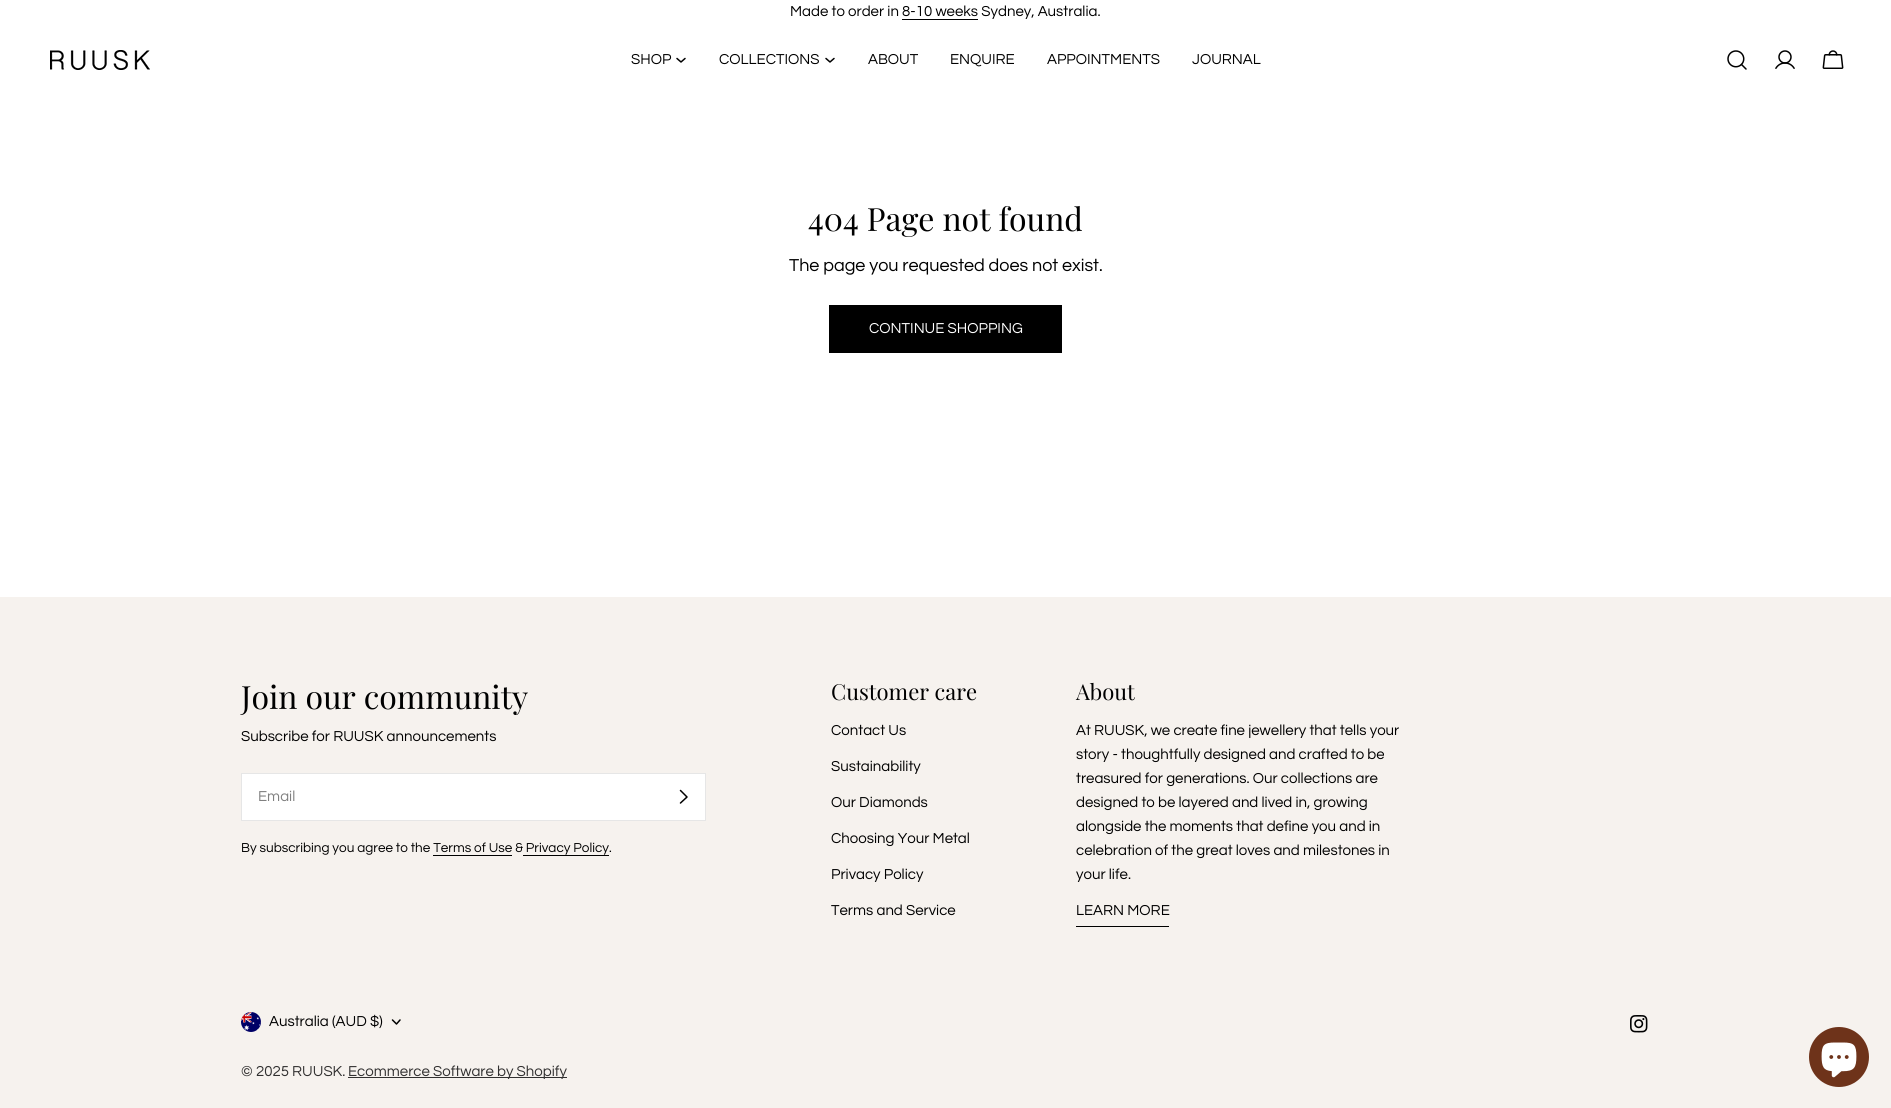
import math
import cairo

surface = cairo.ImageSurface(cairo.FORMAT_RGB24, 1891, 1108)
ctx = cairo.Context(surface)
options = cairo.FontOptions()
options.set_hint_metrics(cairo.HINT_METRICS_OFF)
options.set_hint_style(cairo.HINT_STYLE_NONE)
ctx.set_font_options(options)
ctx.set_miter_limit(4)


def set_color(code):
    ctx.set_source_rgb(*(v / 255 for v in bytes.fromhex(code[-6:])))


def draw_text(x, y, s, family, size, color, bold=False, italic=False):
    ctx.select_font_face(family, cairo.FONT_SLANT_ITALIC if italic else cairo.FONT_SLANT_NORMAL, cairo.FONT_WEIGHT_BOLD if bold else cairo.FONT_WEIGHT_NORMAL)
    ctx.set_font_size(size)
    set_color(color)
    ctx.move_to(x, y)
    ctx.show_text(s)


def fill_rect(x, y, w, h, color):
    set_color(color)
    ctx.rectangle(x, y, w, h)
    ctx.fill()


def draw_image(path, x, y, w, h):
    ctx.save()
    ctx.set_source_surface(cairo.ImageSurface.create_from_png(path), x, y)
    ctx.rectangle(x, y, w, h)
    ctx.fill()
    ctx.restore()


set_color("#ffffff")
ctx.paint()
draw_text(790, 16, "Made to order in 8-10 weeks Sydney, Australia.", "Questrial", 15, "#000000")
fill_rect(902, 19, 76, 1, "#000000")
draw_image("assets/img1.png", 50, 50, 100, 20)
draw_text(631, 64, "SHOP", "Questrial", 15, "#000000")
ctx.new_path()
ctx.move_to(685, 58.5)
ctx.line_to(681, 62)
ctx.line_to(677, 58.5)
ctx.set_line_width(1.5)
ctx.set_line_cap(cairo.LINE_CAP_ROUND)
ctx.set_line_join(cairo.LINE_JOIN_ROUND)
ctx.stroke()
draw_text(719, 64, "COLLECTIONS", "Questrial", 15, "#000000")
ctx.new_path()
ctx.move_to(834, 58.5)
ctx.line_to(830, 62)
ctx.line_to(826, 58.5)
ctx.stroke()
draw_text(868, 64, "ABOUT", "Questrial", 15, "#000000")
draw_text(950, 64, "ENQUIRE", "Questrial", 15, "#000000")
draw_text(1047, 64, "APPOINTMENTS", "Questrial", 15, "#000000")
draw_text(1192, 64, "JOURNAL", "Questrial", 15, "#000000")
draw_image("assets/img2.png", 1727, 50, 20, 20)
draw_image("assets/img3.png", 1775, 50, 20, 19)
draw_image("assets/img4.png", 1822, 50, 22, 19)
draw_text(808, 231, "404 Page not found", "Playfair Display", 32, "#000000")
draw_text(789, 271, "The page you requested does not exist.", "Questrial", 18, "#000000")
fill_rect(829, 305, 233, 48, "#000000")
draw_text(869, 333, "CONTINUE SHOPPING", "Questrial", 15, "#ffffff")
fill_rect(0, 597, 1891, 511, "#f6f2ee")
draw_text(241, 709, "Join our community", "Playfair Display", 32, "#000000")
draw_text(241, 741, "Subscribe for RUUSK announcements", "Questrial", 15, "#000000")
set_color("#ffffff")
ctx.rectangle(241.5, 773.5, 464, 47)
ctx.fill_preserve()
set_color("#e6e6e6")
ctx.set_line_width(1)
ctx.set_line_cap(cairo.LINE_CAP_BUTT)
ctx.set_line_join(cairo.LINE_JOIN_MITER)
ctx.stroke()
draw_text(258, 801, "Email", "Questrial", 15, "#808080")
ctx.new_path()
ctx.move_to(680.5, 790.5)
ctx.line_to(687, 797)
ctx.line_to(680.5, 803)
set_color("#000000")
ctx.set_line_width(1.5)
ctx.set_line_cap(cairo.LINE_CAP_ROUND)
ctx.set_line_join(cairo.LINE_JOIN_ROUND)
ctx.stroke()
draw_text(241, 852, "By subscribing you agree to the Terms of Use & Privacy Policy.", "Questrial", 13.5, "#000000")
fill_rect(433, 855, 79, 1, "#000000")
fill_rect(523, 855, 86, 1, "#000000")
draw_text(831, 700, "Customer care", "Playfair Display", 22, "#000000")
draw_text(831, 735, "Contact Us", "Questrial", 15, "#000000")
draw_text(831, 771, "Sustainability", "Questrial", 15, "#000000")
draw_text(831, 807, "Our Diamonds", "Questrial", 15, "#000000")
draw_text(831, 843, "Choosing Your Metal", "Questrial", 15, "#000000")
draw_text(831, 879, "Privacy Policy", "Questrial", 15, "#000000")
draw_text(831, 915, "Terms and Service", "Questrial", 15, "#000000")
draw_text(1076, 700, "About", "Playfair Display", 22, "#000000")
draw_text(1076, 735, "At RUUSK, we create fine jewellery that tells your", "Questrial", 15, "#000000")
draw_text(1076, 759, "story - thoughtfully designed and crafted to be", "Questrial", 15, "#000000")
draw_text(1076, 783, "treasured for generations. Our collections are", "Questrial", 15, "#000000")
draw_text(1076, 807, "designed to be layered and lived in, growing", "Questrial", 15, "#000000")
draw_text(1076, 831, "alongside the moments that define you and in", "Questrial", 15, "#000000")
draw_text(1076, 855, "celebration of the great loves and milestones in", "Questrial", 15, "#000000")
draw_text(1076, 879, "your life.", "Questrial", 15, "#000000")
draw_text(1076, 915, "LEARN MORE", "Questrial", 15, "#000000")
fill_rect(1076, 926, 93, 1, "#000000")
draw_image("assets/img5.png", 241, 1012, 20, 20)
draw_text(269, 1026, "Australia (AUD $)", "Questrial", 15, "#000000")
ctx.new_path()
ctx.move_to(400, 1020)
ctx.line_to(396.5, 1024)
ctx.line_to(392.5, 1020)
ctx.stroke()
draw_image("assets/img6.png", 1630, 1015, 18, 18)
draw_text(241, 1076, "© 2025 RUUSK.", "Questrial", 15, "#313030")
fill_rect(348, 1077, 219, 1, "#313030")
draw_text(348, 1076, "Ecommerce Software by Shopify", "Questrial", 15, "#313030")
set_color("#6e331a")
ctx.new_path()
ctx.arc(1839, 1057, 30, 0, 2 * math.pi)
ctx.fill()
draw_image("assets/img7.png", 1821, 1042, 36, 36)
surface.write_to_png("output.png")
